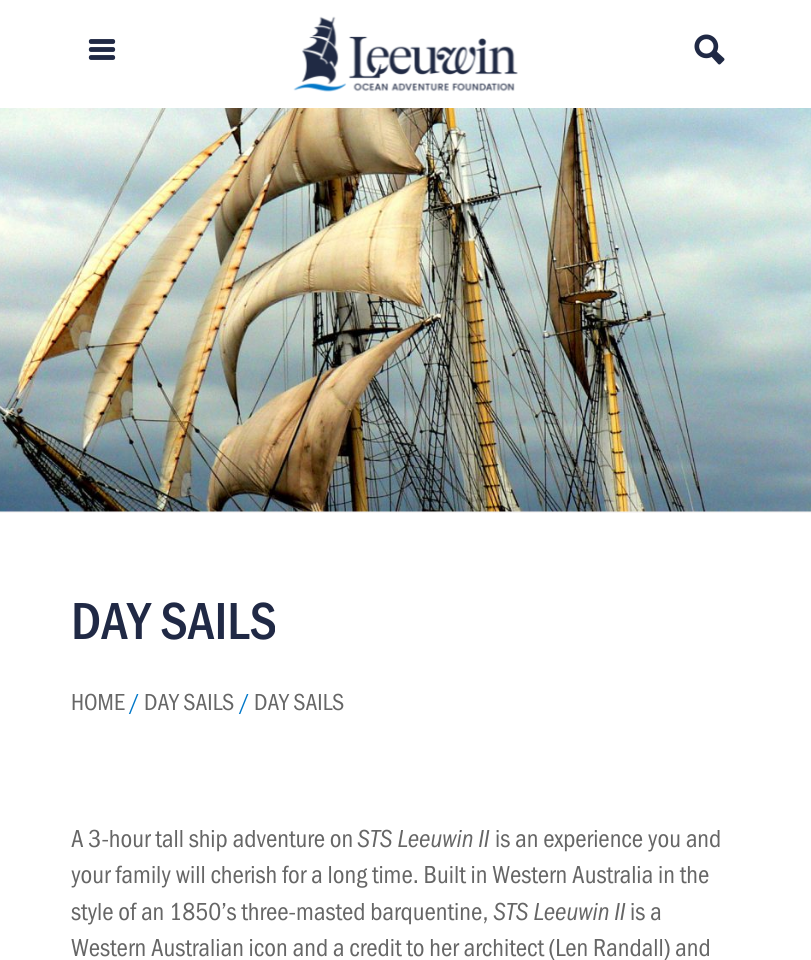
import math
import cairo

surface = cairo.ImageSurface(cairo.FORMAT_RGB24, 811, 960)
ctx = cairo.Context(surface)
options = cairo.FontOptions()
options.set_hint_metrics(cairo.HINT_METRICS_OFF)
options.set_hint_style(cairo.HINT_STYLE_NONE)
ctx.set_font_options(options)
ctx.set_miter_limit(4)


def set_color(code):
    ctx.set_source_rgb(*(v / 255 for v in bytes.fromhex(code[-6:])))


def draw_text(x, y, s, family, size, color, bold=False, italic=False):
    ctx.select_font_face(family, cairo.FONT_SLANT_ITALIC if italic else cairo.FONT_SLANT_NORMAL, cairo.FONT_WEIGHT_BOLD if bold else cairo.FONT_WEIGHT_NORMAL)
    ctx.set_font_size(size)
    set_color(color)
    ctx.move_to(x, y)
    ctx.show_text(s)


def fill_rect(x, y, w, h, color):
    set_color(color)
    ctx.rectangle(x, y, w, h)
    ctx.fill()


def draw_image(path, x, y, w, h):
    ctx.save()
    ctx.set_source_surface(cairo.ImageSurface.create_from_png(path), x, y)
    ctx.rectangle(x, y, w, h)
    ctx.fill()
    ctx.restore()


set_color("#f7f5f5")
ctx.paint()
fill_rect(0, 0, 811, 108, "#ffffff")
draw_image("assets/img1.png", 88, 39, 28, 21)
draw_image("assets/img2.png", 293, 16, 225, 76)
draw_image("assets/img3.png", 694, 34, 31, 31)
draw_image("assets/img4.png", 0, 108, 811, 404)
fill_rect(0, 513, 811, 447, "#ffffff")
draw_text(71, 639, "DAY SAILS", "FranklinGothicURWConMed", 54, "#202945")
draw_text(71, 710, "HOME", "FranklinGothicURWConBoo", 24, "#666666")
draw_text(129, 710, "/", "FranklinGothicURWConBoo", 24, "#0077c8")
draw_text(144, 710, "DAY SAILS", "FranklinGothicURWConBoo", 24, "#666666")
draw_text(239, 710, "/", "FranklinGothicURWConBoo", 24, "#0077c8")
draw_text(254, 710, "DAY SAILS", "FranklinGothicURWConBoo", 24, "#666666")
draw_text(71, 847, "A 3-hour tall ship adventure on", "FranklinGothicURWConBoo", 25.5, "#666666")
draw_text(357, 847, "STS Leeuwin II", "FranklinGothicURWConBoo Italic", 25.5, "#666666", italic=True)
draw_text(495, 847, "is an experience you and", "FranklinGothicURWConBoo", 25.5, "#666666")
draw_text(71, 883, "your family will cherish for a long time. Built in Western Australia in the", "FranklinGothicURWConBoo", 25.5, "#666666")
draw_text(71, 920, "style of an 1850’s three-masted barquentine,", "FranklinGothicURWConBoo", 25.5, "#666666")
draw_text(493, 920, "STS Leeuwin II", "FranklinGothicURWConBoo Italic", 25.5, "#666666", italic=True)
draw_text(630, 920, "is a", "FranklinGothicURWConBoo", 25.5, "#666666")
draw_text(71, 956, "Western Australian icon and a credit to her architect (Len Randall) and", "FranklinGothicURWConBoo", 25.5, "#666666")
surface.write_to_png("output.png")
